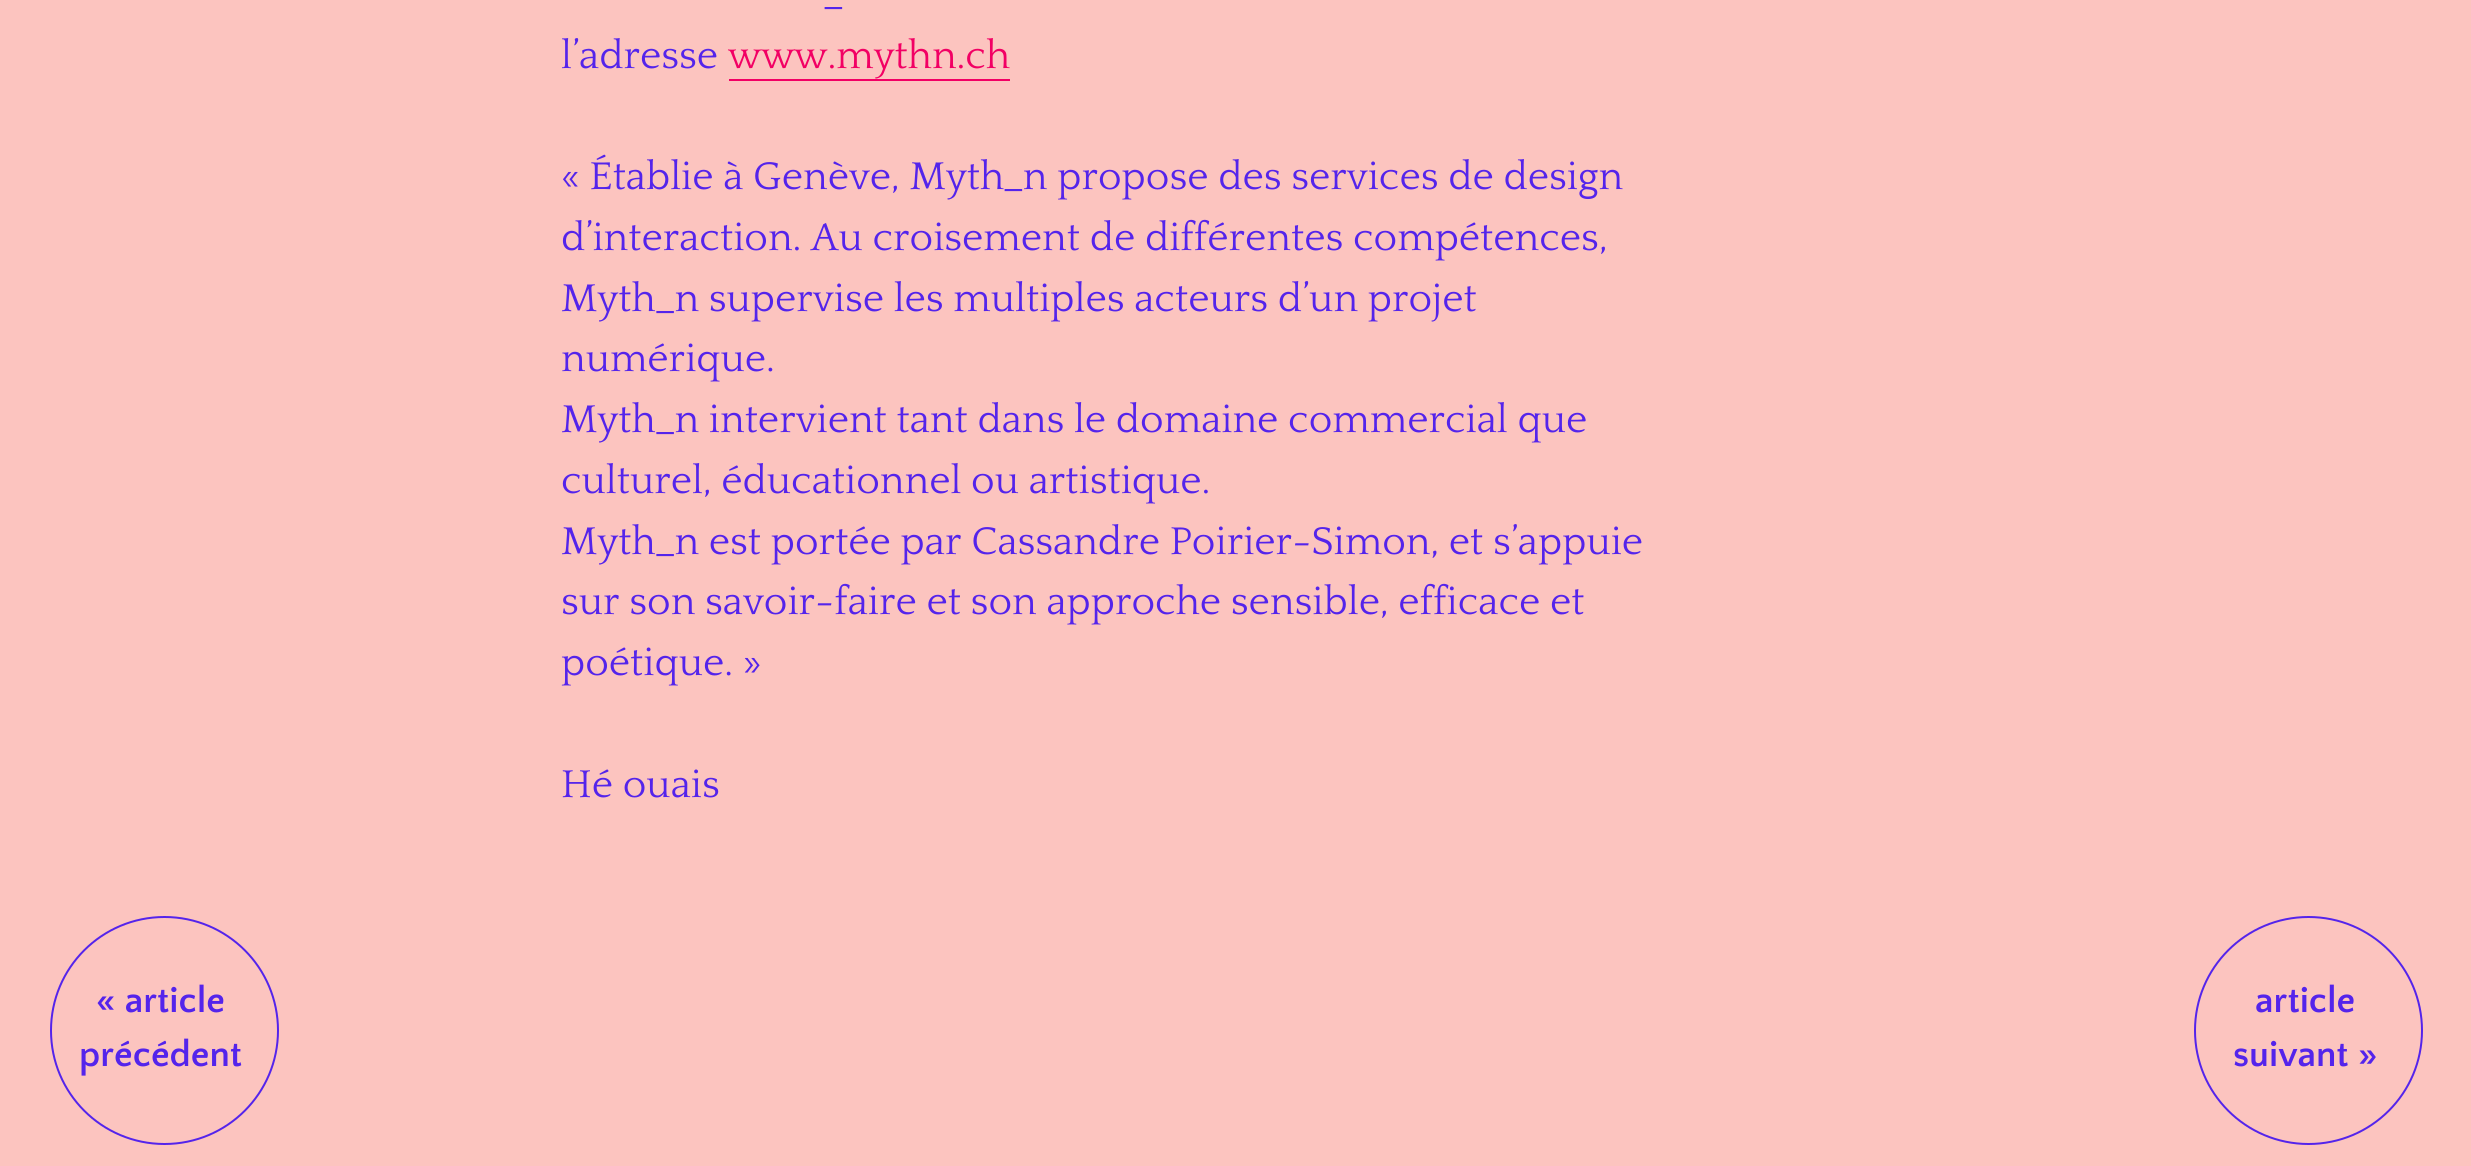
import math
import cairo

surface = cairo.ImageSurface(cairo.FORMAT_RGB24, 2471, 1166)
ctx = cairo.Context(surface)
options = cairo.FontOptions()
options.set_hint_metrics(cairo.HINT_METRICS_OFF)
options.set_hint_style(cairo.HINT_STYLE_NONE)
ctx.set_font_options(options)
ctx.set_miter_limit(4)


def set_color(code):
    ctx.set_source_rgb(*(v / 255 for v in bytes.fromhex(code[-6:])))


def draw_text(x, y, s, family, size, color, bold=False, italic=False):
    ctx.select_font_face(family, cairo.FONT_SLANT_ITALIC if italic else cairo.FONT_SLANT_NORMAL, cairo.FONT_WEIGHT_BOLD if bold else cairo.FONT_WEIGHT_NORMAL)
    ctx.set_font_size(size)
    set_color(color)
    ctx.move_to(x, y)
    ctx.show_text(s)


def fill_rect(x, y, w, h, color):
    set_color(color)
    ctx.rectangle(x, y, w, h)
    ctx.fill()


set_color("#fcc4bf")
ctx.paint()
draw_text(824, 7, "_", "Quattrocento", 40.5, "#5424eb")
draw_text(561, 68, "l’adresse", "Quattrocento", 40.5, "#5424eb")
draw_text(728, 68, "www.mythn.ch", "Quattrocento", 40.5, "#f20064")
fill_rect(729, 79, 281, 2, "#f20064")
draw_text(561, 189, "« Établie à Genève, Myth_n propose des services de design", "Quattrocento", 40.5, "#5424eb")
draw_text(561, 250, "d’interaction. Au croisement de différentes compétences,", "Quattrocento", 40.5, "#5424eb")
draw_text(561, 311, "Myth_n supervise les multiples acteurs d’un projet", "Quattrocento", 40.5, "#5424eb")
draw_text(561, 371, "numérique.", "Quattrocento", 40.5, "#5424eb")
draw_text(561, 432, "Myth_n intervient tant dans le domaine commercial que", "Quattrocento", 40.5, "#5424eb")
draw_text(561, 493, "culturel, éducationnel ou artistique.", "Quattrocento", 40.5, "#5424eb")
draw_text(561, 554, "Myth_n est portée par Cassandre Poirier-Simon, et s’appuie", "Quattrocento", 40.5, "#5424eb")
draw_text(561, 614, "sur son savoir-faire et son approche sensible, efficace et", "Quattrocento", 40.5, "#5424eb")
draw_text(561, 675, "poétique. »", "Quattrocento", 40.5, "#5424eb")
draw_text(561, 797, "Hé ouais", "Quattrocento", 40.5, "#5424eb")
ctx.new_path()
ctx.arc(164.5, 1030.5, 113.5, 0, 2 * math.pi)
ctx.stroke()
draw_text(96, 1012, "« article", "Quattrocento Sans", 37, "#5424eb", bold=True)
draw_text(79, 1066, "précédent", "Quattrocento Sans", 37, "#5424eb", bold=True)
ctx.new_path()
ctx.arc(2308.5, 1030.5, 113.5, 0, 2 * math.pi)
ctx.stroke()
draw_text(2255, 1012, "article", "Quattrocento Sans", 37, "#5424eb", bold=True)
draw_text(2233, 1066, "suivant »", "Quattrocento Sans", 37, "#5424eb", bold=True)
surface.write_to_png("output.png")
